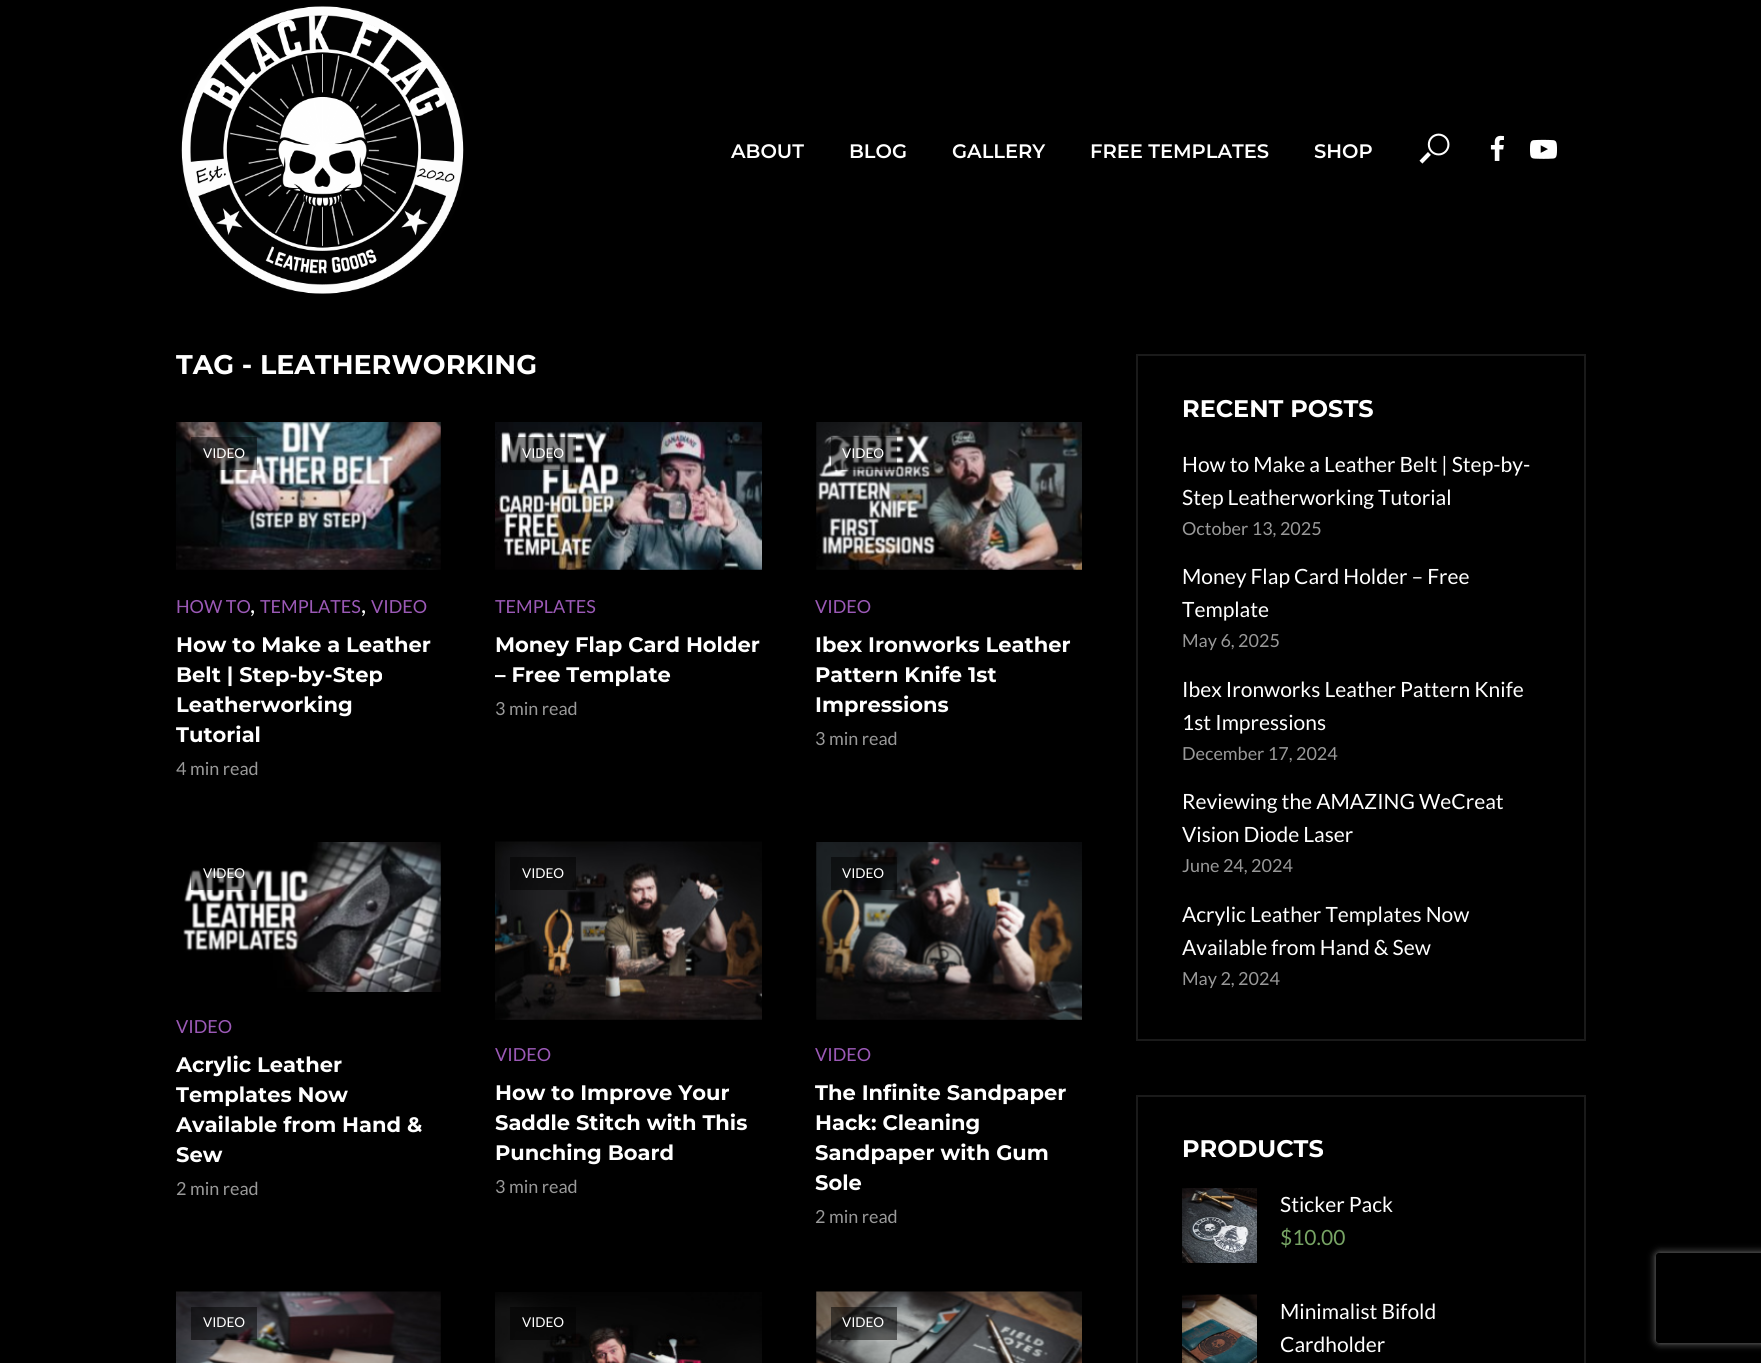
import math
import cairo

surface = cairo.ImageSurface(cairo.FORMAT_RGB24, 1761, 1363)
ctx = cairo.Context(surface)
options = cairo.FontOptions()
options.set_hint_metrics(cairo.HINT_METRICS_OFF)
options.set_hint_style(cairo.HINT_STYLE_NONE)
ctx.set_font_options(options)
ctx.set_miter_limit(4)


def set_color(code):
    ctx.set_source_rgb(*(v / 255 for v in bytes.fromhex(code[-6:])))


def draw_text(x, y, s, family, size, color, bold=False, italic=False):
    ctx.select_font_face(family, cairo.FONT_SLANT_ITALIC if italic else cairo.FONT_SLANT_NORMAL, cairo.FONT_WEIGHT_BOLD if bold else cairo.FONT_WEIGHT_NORMAL)
    ctx.set_font_size(size)
    set_color(color)
    ctx.move_to(x, y)
    ctx.show_text(s)


def rounded_rect(x, y, w, h, r):
    ctx.new_sub_path()
    for i, (u, v) in enumerate([(x + w - r, y + h - r), (x + r, y + h - r), (x + r, y + r), (x + w - r, y + r)]):
        ctx.arc(u, v, r, i * math.pi / 2, (i + 1) * math.pi / 2)
    ctx.close_path()


def draw_shadow(x, y, w, h, r, blur, alpha):
    ctx.push_group_with_content(cairo.CONTENT_ALPHA)
    ctx.set_operator(cairo.OPERATOR_SOURCE)
    for i in range(15, -16, -2):
        e = blur * i / 6
        if min(w, h) + 2 * e > 0:
            ctx.set_source_rgba(0, 0, 0, alpha * math.erfc((i - 1) / 8.5) / 2)
            rounded_rect(x - e, y - e, w + 2 * e, h + 2 * e, max(0, min(r + e + blur * .6, min(w, h) / 2 + e)))
            ctx.fill()
    ctx.mask(ctx.pop_group())


def draw_image(path, x, y, w, h):
    ctx.save()
    ctx.set_source_surface(cairo.ImageSurface.create_from_png(path), x, y)
    ctx.rectangle(x, y, w, h)
    ctx.fill()
    ctx.restore()


set_color("#000000")
ctx.paint()
draw_image("assets/img1.png", 181, 6, 283, 288)
draw_text(731, 158, "ABOUT", "Montserrat SemiBold", 19.5, "#ffffff")
draw_text(849, 158, "BLOG", "Montserrat SemiBold", 19.5, "#ffffff")
draw_text(952, 158, "GALLERY", "Montserrat SemiBold", 19.5, "#ffffff")
draw_text(1090, 158, "FREE TEMPLATES", "Montserrat SemiBold", 19.5, "#ffffff")
draw_text(1314, 158, "SHOP", "Montserrat SemiBold", 19.5, "#ffffff")
draw_image("assets/img2.png", 1419, 133, 31, 31)
draw_image("assets/img3.png", 1490, 135, 14, 26)
draw_image("assets/img4.png", 1530, 139, 27, 20)
draw_text(176, 374, "TAG - LEATHERWORKING", "Montserrat", 27, "#ffffff", bold=True)
draw_image("assets/img5.png", 176, 422, 265, 148)
ctx.set_source_rgba(0, 0, 0, 0.5)
ctx.rectangle(191, 437, 66, 33)
ctx.fill()
draw_text(203, 458, "VIDEO", "Lato", 13.5, "#ffffff")
draw_text(176, 613, "HOW TO", "Lato", 18, "#9b59b6")
draw_text(250, 613, ",", "Lato", 24, "#ffffff")
draw_text(260, 613, "TEMPLATES", "Lato", 18, "#9b59b6")
draw_text(361, 613, ",", "Lato", 24, "#ffffff")
draw_text(371, 613, "VIDEO", "Lato", 18, "#9b59b6")
draw_text(176, 652, "How to Make a Leather", "Montserrat", 21, "#ffffff", bold=True)
draw_text(176, 682, "Belt | Step-by-Step", "Montserrat", 21, "#ffffff", bold=True)
draw_text(176, 712, "Leatherworking", "Montserrat", 21, "#ffffff", bold=True)
draw_text(176, 742, "Tutorial", "Montserrat", 21, "#ffffff", bold=True)
draw_text(176, 775, "4 min read", "Lato", 18, "#999999")
draw_image("assets/img6.png", 495, 422, 267, 148)
ctx.set_source_rgba(0, 0, 0, 0.5)
ctx.rectangle(510, 437, 66, 33)
ctx.fill()
draw_text(522, 458, "VIDEO", "Lato", 13.5, "#ffffff")
draw_text(495, 613, "TEMPLATES", "Lato", 18, "#9b59b6")
draw_text(495, 652, "Money Flap Card Holder", "Montserrat", 21, "#ffffff", bold=True)
draw_text(495, 682, "– Free Template", "Montserrat", 21, "#ffffff", bold=True)
draw_text(495, 715, "3 min read", "Lato", 18, "#999999")
draw_image("assets/img7.png", 816, 422, 266, 148)
ctx.set_source_rgba(0, 0, 0, 0.5)
ctx.rectangle(831, 437, 66, 33)
ctx.fill()
draw_text(842, 458, "VIDEO", "Lato", 13.5, "#ffffff")
draw_text(815, 613, "VIDEO", "Lato", 18, "#9b59b6")
draw_text(815, 652, "Ibex Ironworks Leather", "Montserrat", 21, "#ffffff", bold=True)
draw_text(815, 682, "Pattern Knife 1st", "Montserrat", 21, "#ffffff", bold=True)
draw_text(815, 712, "Impressions", "Montserrat", 21, "#ffffff", bold=True)
draw_text(815, 745, "3 min read", "Lato", 18, "#999999")
draw_image("assets/img8.png", 183, 842, 258, 150)
ctx.set_source_rgba(0, 0, 0, 0.5)
ctx.rectangle(191, 869, 66, 21)
ctx.fill()
draw_text(203, 878, "VIDEO", "Lato", 13.5, "#ffffff")
draw_text(176, 1033, "VIDEO", "Lato", 18, "#9b59b6")
draw_text(176, 1072, "Acrylic Leather", "Montserrat", 21, "#ffffff", bold=True)
draw_text(176, 1102, "Templates Now", "Montserrat", 21, "#ffffff", bold=True)
draw_text(176, 1132, "Available from Hand &", "Montserrat", 21, "#ffffff", bold=True)
draw_text(176, 1162, "Sew", "Montserrat", 21, "#ffffff", bold=True)
draw_text(176, 1195, "2 min read", "Lato", 18, "#999999")
draw_image("assets/img9.png", 495, 841, 267, 179)
ctx.set_source_rgba(0, 0, 0, 0.5)
ctx.rectangle(510, 857, 66, 33)
ctx.fill()
draw_text(522, 878, "VIDEO", "Lato", 13.5, "#ffffff")
draw_text(495, 1061, "VIDEO", "Lato", 18, "#9b59b6")
draw_text(495, 1100, "How to Improve Your", "Montserrat", 21, "#ffffff", bold=True)
draw_text(495, 1130, "Saddle Stitch with This", "Montserrat", 21, "#ffffff", bold=True)
draw_text(495, 1160, "Punching Board", "Montserrat", 21, "#ffffff", bold=True)
draw_text(495, 1193, "3 min read", "Lato", 18, "#999999")
draw_image("assets/img10.png", 816, 842, 266, 178)
ctx.set_source_rgba(0, 0, 0, 0.5)
ctx.rectangle(831, 857, 66, 33)
ctx.fill()
draw_text(842, 878, "VIDEO", "Lato", 13.5, "#ffffff")
draw_text(815, 1061, "VIDEO", "Lato", 18, "#9b59b6")
draw_text(815, 1100, "The Infinite Sandpaper", "Montserrat", 21, "#ffffff", bold=True)
draw_text(815, 1130, "Hack: Cleaning", "Montserrat", 21, "#ffffff", bold=True)
draw_text(815, 1160, "Sandpaper with Gum", "Montserrat", 21, "#ffffff", bold=True)
draw_text(815, 1190, "Sole", "Montserrat", 21, "#ffffff", bold=True)
draw_text(815, 1223, "2 min read", "Lato", 18, "#999999")
draw_image("assets/img11.png", 176, 1291, 265, 72)
ctx.set_source_rgba(0, 0, 0, 0.5)
ctx.rectangle(191, 1307, 66, 33)
ctx.fill()
draw_text(203, 1327, "VIDEO", "Lato", 13.5, "#ffffff")
draw_image("assets/img12.png", 495, 1292, 267, 71)
ctx.set_source_rgba(0, 0, 0, 0.5)
ctx.rectangle(510, 1307, 66, 33)
ctx.fill()
draw_text(522, 1327, "VIDEO", "Lato", 13.5, "#ffffff")
draw_image("assets/img13.png", 816, 1291, 266, 72)
ctx.set_source_rgba(0, 0, 0, 0.5)
ctx.rectangle(831, 1307, 66, 33)
ctx.fill()
draw_text(842, 1327, "VIDEO", "Lato", 13.5, "#ffffff")
ctx.rectangle(1137, 355, 448, 685)
set_color("#1a1a1a")
ctx.stroke()
draw_text(1182, 417, "RECENT POSTS", "Montserrat", 24, "#ffffff", bold=True)
draw_text(1182, 472, "How to Make a Leather Belt | Step-by-", "Lato", 21, "#ffffff")
draw_text(1182, 505, "Step Leatherworking Tutorial", "Lato", 21, "#ffffff")
draw_text(1182, 535, "October 13, 2025", "Lato", 18, "#999999")
draw_text(1182, 584, "Money Flap Card Holder – Free", "Lato", 21, "#ffffff")
draw_text(1182, 617, "Template", "Lato", 21, "#ffffff")
draw_text(1182, 647, "May 6, 2025", "Lato", 18, "#999999")
draw_text(1182, 697, "Ibex Ironworks Leather Pattern Knife", "Lato", 21, "#ffffff")
draw_text(1182, 730, "1st Impressions", "Lato", 21, "#ffffff")
draw_text(1182, 760, "December 17, 2024", "Lato", 18, "#999999")
draw_text(1182, 809, "Reviewing the AMAZING WeCreat", "Lato", 21, "#ffffff")
draw_text(1182, 842, "Vision Diode Laser", "Lato", 21, "#ffffff")
draw_text(1182, 872, "June 24, 2024", "Lato", 18, "#999999")
draw_text(1182, 922, "Acrylic Leather Templates Now", "Lato", 21, "#ffffff")
draw_text(1182, 955, "Available from Hand & Sew", "Lato", 21, "#ffffff")
draw_text(1182, 985, "May 2, 2024", "Lato", 18, "#999999")
ctx.rectangle(1137, 1096, 448, 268)
set_color("#1a1a1a")
ctx.stroke()
draw_text(1182, 1157, "PRODUCTS", "Montserrat", 24, "#ffffff", bold=True)
draw_image("assets/img14.png", 1182, 1188, 75, 75)
draw_text(1280, 1212, "Sticker Pack", "Lato", 21, "#ffffff")
draw_text(1280, 1245, "$10.00", "Lato", 21, "#77a464")
draw_image("assets/img15.png", 1182, 1294, 75, 69)
draw_text(1280, 1319, "Minimalist Bifold", "Lato", 21, "#ffffff")
draw_text(1280, 1352, "Cardholder", "Lato", 21, "#ffffff")
ctx.save()
ctx.set_fill_rule(cairo.FILL_RULE_EVEN_ODD)
ctx.new_path()
ctx.move_to(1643, 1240)
ctx.line_to(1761, 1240)
ctx.line_to(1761, 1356)
ctx.line_to(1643, 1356)
ctx.close_path()
ctx.move_to(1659, 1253)
ctx.line_to(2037, 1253)
ctx.curve_to(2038.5, 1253, 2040, 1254.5, 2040, 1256)
ctx.line_to(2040, 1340)
ctx.curve_to(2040, 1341.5, 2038.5, 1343, 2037, 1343)
ctx.line_to(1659, 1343)
ctx.curve_to(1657.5, 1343, 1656, 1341.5, 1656, 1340)
ctx.line_to(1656, 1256)
ctx.curve_to(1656, 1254.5, 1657.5, 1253, 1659, 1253)
ctx.close_path()
ctx.clip()
set_color("#808080")
draw_shadow(1656, 1253, 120, 90, 3, 4, 1)
ctx.restore()
surface.write_to_png("output.png")
